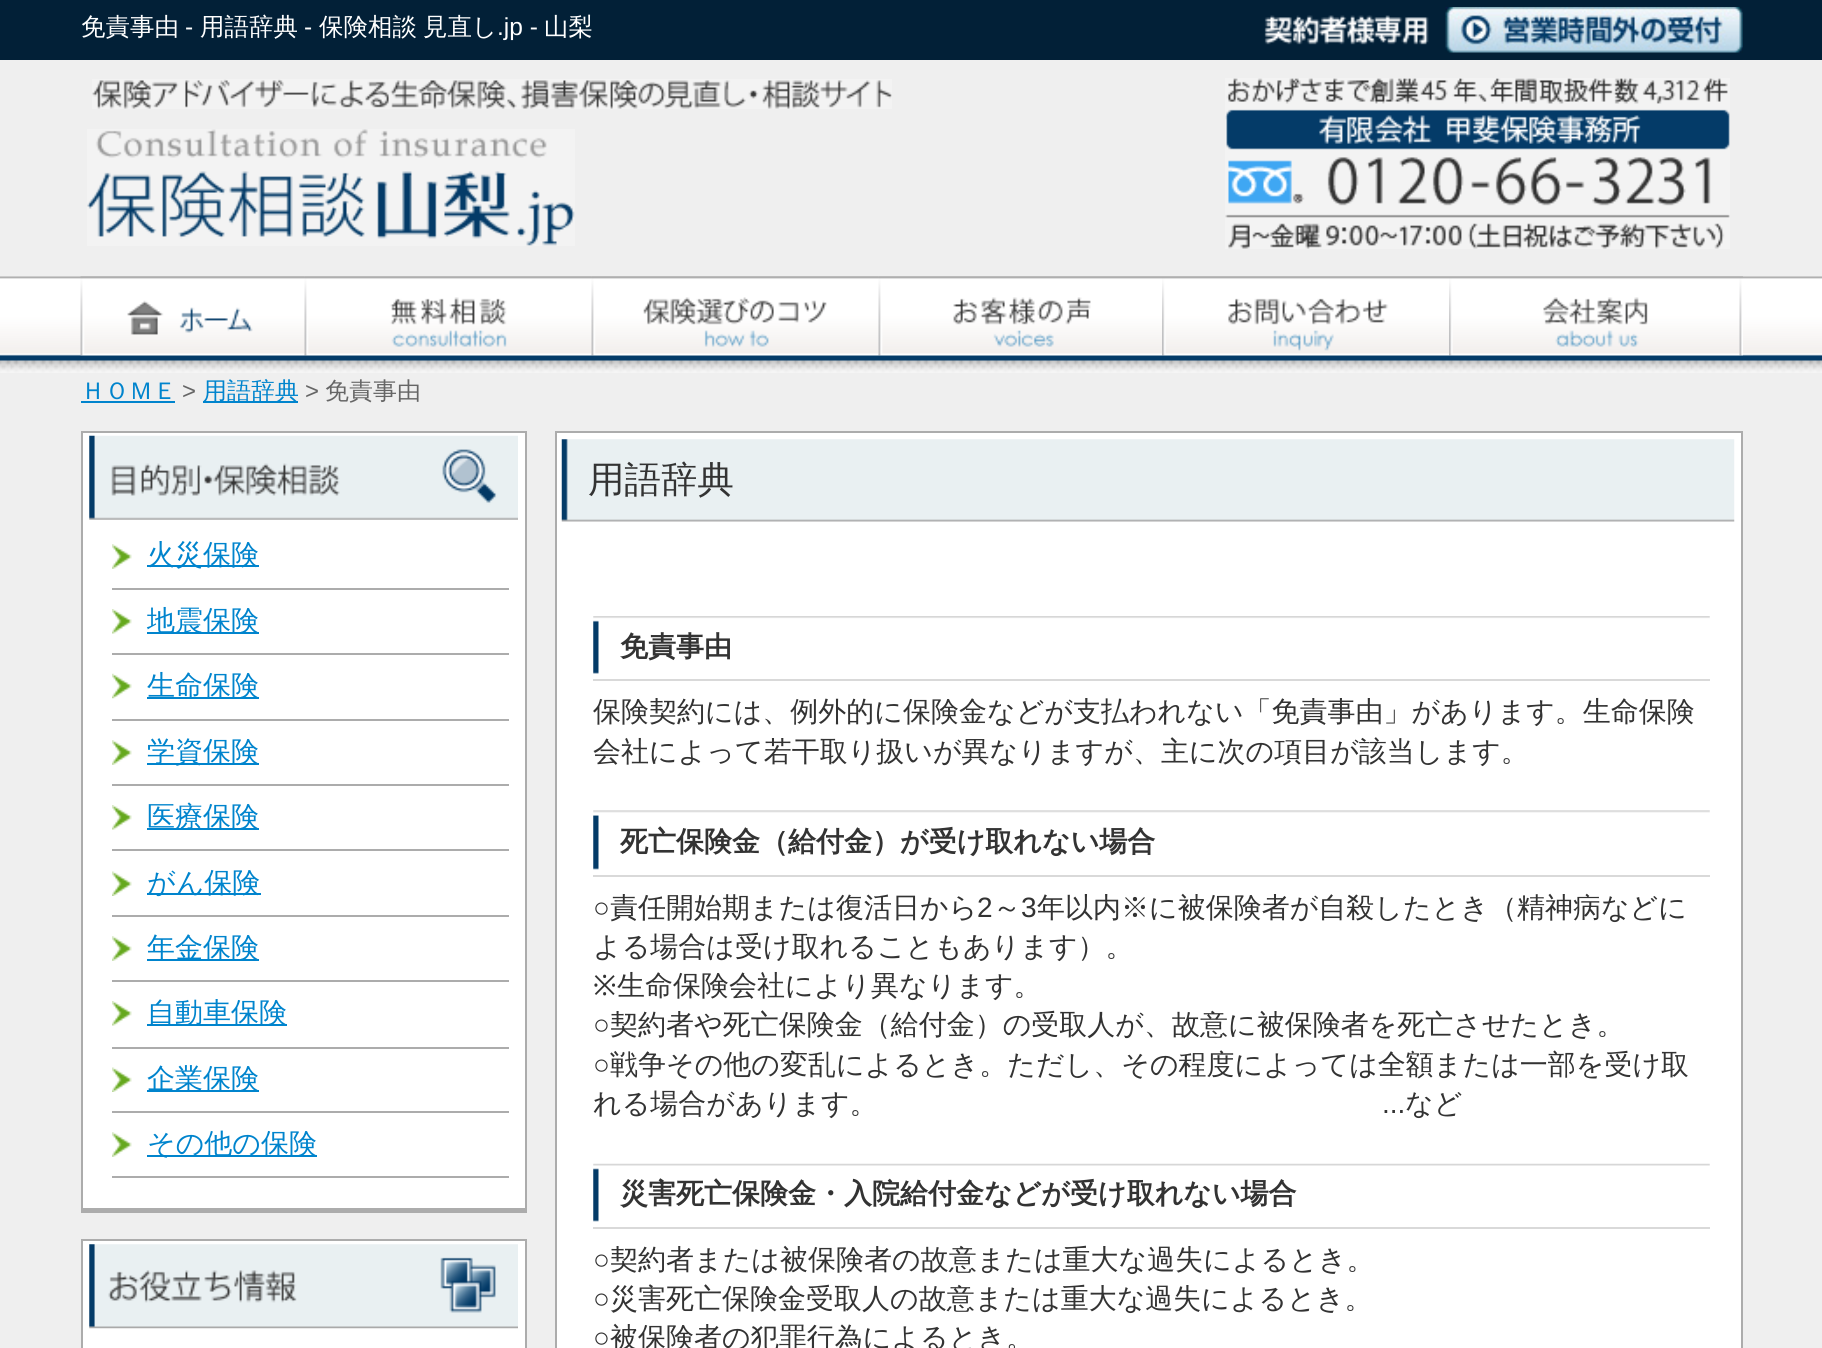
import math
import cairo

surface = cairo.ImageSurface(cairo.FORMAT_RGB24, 1822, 1348)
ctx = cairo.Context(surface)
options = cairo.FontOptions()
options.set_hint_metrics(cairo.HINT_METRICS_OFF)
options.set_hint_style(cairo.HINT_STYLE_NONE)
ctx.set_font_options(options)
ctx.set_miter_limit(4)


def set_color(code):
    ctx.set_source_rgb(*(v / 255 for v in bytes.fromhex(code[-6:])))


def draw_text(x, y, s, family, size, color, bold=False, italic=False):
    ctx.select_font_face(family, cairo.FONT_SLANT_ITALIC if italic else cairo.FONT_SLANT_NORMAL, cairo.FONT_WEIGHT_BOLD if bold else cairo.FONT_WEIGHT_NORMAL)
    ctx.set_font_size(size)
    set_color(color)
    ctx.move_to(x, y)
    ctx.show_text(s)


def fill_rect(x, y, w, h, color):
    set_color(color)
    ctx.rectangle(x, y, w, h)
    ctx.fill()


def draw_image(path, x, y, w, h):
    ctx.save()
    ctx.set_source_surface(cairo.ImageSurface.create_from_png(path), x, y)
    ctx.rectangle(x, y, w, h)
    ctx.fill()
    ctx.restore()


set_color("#efefef")
ctx.paint()
fill_rect(0, 0, 1822, 60, "#022037")
draw_image("assets/img1.png", 1264, 15, 165, 30)
draw_image("assets/img2.png", 1445, 7, 298, 46)
draw_image("assets/img3.png", 92, 79, 800, 30)
draw_image("assets/img4.png", 1225, 78, 505, 171)
draw_image("assets/img5.png", 87, 129, 488, 117)
draw_text(81, 35, "免責事由", "WenQuanYi Zen Hei Medium", 24.5, "#ffffff")
draw_text(185, 35, "-", "Liberation Sans", 24.5, "#ffffff")
draw_text(200, 35, "用語辞典", "WenQuanYi Zen Hei Medium", 24.5, "#ffffff")
draw_text(304, 35, "-", "Liberation Sans", 24.5, "#ffffff")
draw_text(319, 35, "保険相談", "WenQuanYi Zen Hei Medium", 24.5, "#ffffff")
draw_text(423, 35, "見直し", "WenQuanYi Zen Hei Medium", 24.5, "#ffffff")
draw_text(497, 35, ".jp -", "Liberation Sans", 24.5, "#ffffff")
draw_text(544, 35, "山梨", "WenQuanYi Zen Hei Medium", 24.5, "#ffffff")
draw_image("assets/img6.png", 0, 276, 1822, 97)
draw_image("assets/img7.png", 80, 276, 225, 80)
draw_image("assets/img8.png", 304, 276, 288, 80)
draw_image("assets/img9.png", 591, 276, 288, 80)
draw_image("assets/img10.png", 878, 276, 284, 80)
draw_image("assets/img11.png", 1162, 276, 287, 80)
draw_image("assets/img12.png", 1449, 276, 294, 80)
draw_text(81, 399, "ＨＯＭＥ", "WenQuanYi Zen Hei Medium", 24, "#0084cd")
fill_rect(81, 401, 94, 2, "#0084cd")
draw_text(182, 399, ">", "Liberation Sans", 24, "#666666")
fill_rect(203, 401, 95, 2, "#0084cd")
draw_text(203, 399, "用語辞典", "WenQuanYi Zen Hei Medium", 24, "#0084cd")
draw_text(305, 399, ">", "Liberation Sans", 24, "#666666")
draw_text(325, 399, "免責事由", "WenQuanYi Zen Hei Medium", 24, "#666666")
fill_rect(83, 433, 442, 775, "#ffffff")
fill_rect(81, 431, 446, 2, "#acacac")
fill_rect(525, 431, 2, 782, "#acacac")
fill_rect(81, 1208, 446, 5, "#acacac")
fill_rect(81, 431, 2, 782, "#acacac")
draw_image("assets/img13.png", 89, 435, 429, 85)
draw_image("assets/img14.png", 112, 544, 20, 25)
fill_rect(112, 588, 397, 2, "#acacac")
fill_rect(147, 565, 112, 2, "#0084cd")
draw_text(147, 564, "火災保険", "WenQuanYi Zen Hei Medium", 28, "#0084cd")
draw_image("assets/img15.png", 112, 609, 20, 25)
fill_rect(112, 653, 397, 2, "#acacac")
fill_rect(147, 632, 112, 2, "#0084cd")
draw_text(147, 630, "地震保険", "WenQuanYi Zen Hei Medium", 28, "#0084cd")
draw_image("assets/img16.png", 112, 673, 20, 26)
fill_rect(112, 719, 397, 2, "#acacac")
fill_rect(147, 697, 112, 2, "#0084cd")
draw_text(147, 695, "生命保険", "WenQuanYi Zen Hei Medium", 28, "#0084cd")
draw_image("assets/img14.png", 112, 740, 20, 25)
fill_rect(112, 784, 397, 2, "#acacac")
fill_rect(147, 763, 112, 2, "#0084cd")
draw_text(147, 761, "学資保険", "WenQuanYi Zen Hei Medium", 28, "#0084cd")
draw_image("assets/img15.png", 112, 805, 20, 25)
fill_rect(112, 849, 397, 2, "#acacac")
fill_rect(147, 828, 112, 2, "#0084cd")
draw_text(147, 826, "医療保険", "WenQuanYi Zen Hei Medium", 28, "#0084cd")
draw_image("assets/img17.png", 112, 871, 20, 25)
fill_rect(112, 915, 397, 2, "#acacac")
fill_rect(147, 893, 114, 2, "#0084cd")
draw_text(147, 892, "がん保険", "WenQuanYi Zen Hei Medium", 28, "#0084cd")
draw_image("assets/img14.png", 112, 936, 20, 25)
fill_rect(112, 980, 397, 2, "#acacac")
fill_rect(147, 959, 112, 2, "#0084cd")
draw_text(147, 957, "年金保険", "WenQuanYi Zen Hei Medium", 28, "#0084cd")
draw_image("assets/img15.png", 112, 1001, 20, 25)
fill_rect(112, 1047, 397, 2, "#acacac")
fill_rect(147, 1024, 140, 2, "#0084cd")
draw_text(147, 1022, "自動車保険", "WenQuanYi Zen Hei Medium", 28, "#0084cd")
draw_image("assets/img17.png", 112, 1067, 20, 25)
fill_rect(112, 1111, 397, 2, "#acacac")
fill_rect(147, 1090, 112, 2, "#0084cd")
draw_text(147, 1088, "企業保険", "WenQuanYi Zen Hei Medium", 28, "#0084cd")
draw_image("assets/img14.png", 112, 1132, 20, 25)
fill_rect(112, 1176, 397, 2, "#acacac")
fill_rect(147, 1155, 170, 2, "#0084cd")
draw_text(147, 1153, "その他の保険", "WenQuanYi Zen Hei Medium", 28, "#0084cd")
fill_rect(83, 1241, 442, 107, "#ffffff")
fill_rect(81, 1239, 446, 2, "#acacac")
fill_rect(525, 1239, 2, 109, "#acacac")
fill_rect(81, 1239, 2, 109, "#acacac")
draw_image("assets/img18.png", 89, 1244, 429, 85)
fill_rect(557, 433, 1184, 915, "#ffffff")
fill_rect(555, 431, 1188, 2, "#acacac")
fill_rect(1741, 431, 2, 917, "#acacac")
fill_rect(555, 431, 2, 917, "#acacac")
draw_image("assets/img19.png", 561, 439, 1174, 83)
draw_text(588, 492, "用語辞典", "WenQuanYi Zen Hei Medium", 36.5, "#333333")
draw_image("assets/img20.png", 593, 616, 1117, 58)
fill_rect(593, 679, 1117, 2, "#d9d9d9")
draw_text(620, 656, "免責事由", "WenQuanYi Zen Hei", 28, "#333333", bold=True)
draw_text(593, 721, "保険契約には、例外的に保険金などが支払われない「免責事由」があります。生命保険", "WenQuanYi Zen Hei Medium", 28, "#333333")
draw_text(593, 761, "会社によって若干取り扱いが異なりますが、主に次の項目が該当します。", "WenQuanYi Zen Hei Medium", 28, "#333333")
draw_image("assets/img21.png", 593, 810, 1117, 60)
fill_rect(593, 875, 1117, 2, "#d9d9d9")
draw_text(620, 851, "死亡保険金（給付金）が受け取れない場合", "WenQuanYi Zen Hei", 28, "#333333", bold=True)
draw_text(593, 917, "○", "Liberation Sans", 28, "#333333")
draw_text(610, 917, "責任開始期または復活日から", "WenQuanYi Zen Hei Medium", 28, "#333333")
draw_text(977, 917, "2", "Liberation Sans", 28, "#333333")
draw_text(993, 917, "～", "WenQuanYi Zen Hei Medium", 28, "#333333")
draw_text(1021, 917, "3", "Liberation Sans", 28, "#333333")
draw_text(1037, 917, "年以内※に被保険者が自殺したとき（精神病などに", "WenQuanYi Zen Hei Medium", 28, "#333333")
draw_text(593, 956, "よる場合は受け取れることもあります）。", "WenQuanYi Zen Hei Medium", 28, "#333333")
draw_text(593, 995, "※", "Noto Sans", 28, "#333333")
draw_text(617, 995, "生命保険会社により異なります。", "WenQuanYi Zen Hei Medium", 28, "#333333")
draw_text(593, 1034, "○", "Liberation Sans", 28, "#333333")
draw_text(610, 1034, "契約者や死亡保険金（給付金）の受取人が、故意に被保険者を死亡させたとき。", "WenQuanYi Zen Hei Medium", 28, "#333333")
draw_text(593, 1074, "○", "Liberation Sans", 28, "#333333")
draw_text(610, 1074, "戦争その他の変乱によるとき。ただし、その程度によっては全額または一部を受け取", "WenQuanYi Zen Hei Medium", 28, "#333333")
draw_text(593, 1113, "れる場合があります。", "WenQuanYi Zen Hei Medium", 28, "#333333")
draw_text(1382, 1113, "...", "Liberation Sans", 28, "#333333")
draw_text(1405, 1113, "など", "WenQuanYi Zen Hei Medium", 28, "#333333")
draw_image("assets/img22.png", 593, 1163, 1117, 59)
fill_rect(593, 1227, 1117, 2, "#d9d9d9")
draw_text(620, 1203, "災害死亡保険金・入院給付金などが受け取れない場合", "WenQuanYi Zen Hei", 28, "#333333", bold=True)
draw_text(593, 1269, "○", "Liberation Sans", 28, "#333333")
draw_text(610, 1269, "契約者または被保険者の故意または重大な過失によるとき。", "WenQuanYi Zen Hei Medium", 28, "#333333")
draw_text(593, 1308, "○", "Liberation Sans", 28, "#333333")
draw_text(610, 1308, "災害死亡保険金受取人の故意または重大な過失によるとき。", "WenQuanYi Zen Hei Medium", 28, "#333333")
draw_text(593, 1347, "○", "Liberation Sans", 28, "#333333")
draw_text(610, 1347, "被保険者の犯罪行為によるとき。", "WenQuanYi Zen Hei Medium", 28, "#333333")
surface.write_to_png("output.png")
